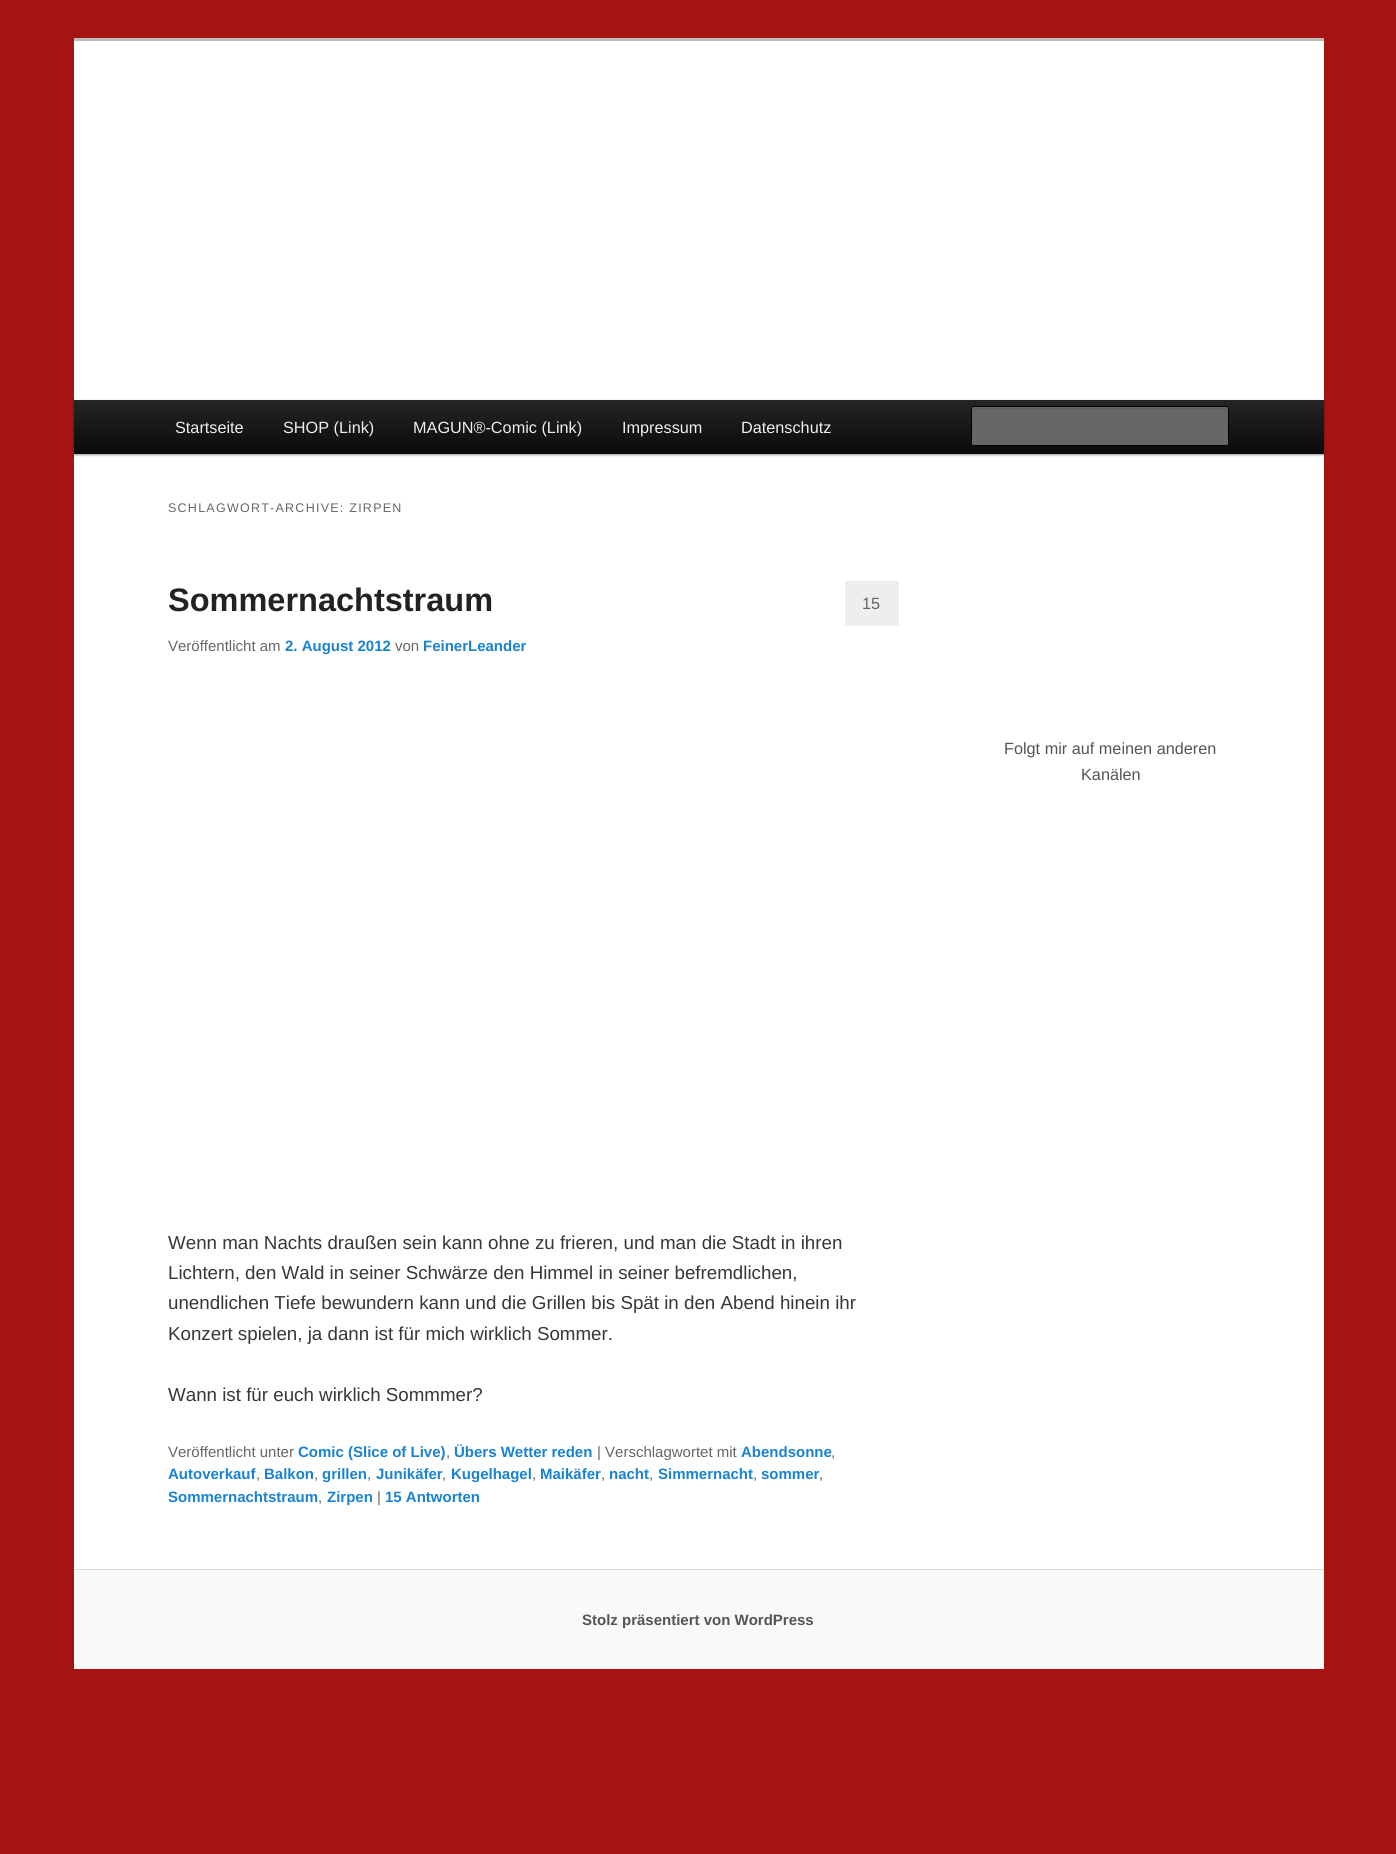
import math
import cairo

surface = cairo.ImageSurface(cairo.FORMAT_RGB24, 1396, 1854)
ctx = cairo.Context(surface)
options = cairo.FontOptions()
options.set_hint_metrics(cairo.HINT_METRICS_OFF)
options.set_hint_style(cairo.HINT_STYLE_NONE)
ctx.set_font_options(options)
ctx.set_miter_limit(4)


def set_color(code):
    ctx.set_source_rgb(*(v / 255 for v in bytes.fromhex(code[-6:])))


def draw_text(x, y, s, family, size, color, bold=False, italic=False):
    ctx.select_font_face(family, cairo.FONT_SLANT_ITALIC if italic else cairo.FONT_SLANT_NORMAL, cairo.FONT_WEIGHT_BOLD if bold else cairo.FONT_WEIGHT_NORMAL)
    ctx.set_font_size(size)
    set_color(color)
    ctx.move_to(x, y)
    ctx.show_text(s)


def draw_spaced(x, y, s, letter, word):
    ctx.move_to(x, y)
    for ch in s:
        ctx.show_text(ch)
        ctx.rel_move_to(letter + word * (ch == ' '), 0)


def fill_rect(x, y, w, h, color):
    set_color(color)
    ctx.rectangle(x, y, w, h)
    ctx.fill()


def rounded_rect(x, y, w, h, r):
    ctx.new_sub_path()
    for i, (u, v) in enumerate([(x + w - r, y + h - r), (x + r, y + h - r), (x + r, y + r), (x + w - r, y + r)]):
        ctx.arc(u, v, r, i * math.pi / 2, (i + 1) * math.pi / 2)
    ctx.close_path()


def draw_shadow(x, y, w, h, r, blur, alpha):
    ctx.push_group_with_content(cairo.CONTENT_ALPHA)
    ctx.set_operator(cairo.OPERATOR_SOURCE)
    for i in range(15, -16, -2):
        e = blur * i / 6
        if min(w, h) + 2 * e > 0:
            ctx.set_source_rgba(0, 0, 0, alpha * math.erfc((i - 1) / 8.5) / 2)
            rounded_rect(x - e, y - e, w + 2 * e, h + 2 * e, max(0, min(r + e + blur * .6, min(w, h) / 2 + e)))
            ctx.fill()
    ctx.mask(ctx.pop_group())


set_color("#a51313")
ctx.paint()
fill_rect(74, 41, 1250, 1528, "#ffffff")
fill_rect(74, 38, 1250, 3, "#bbbbbb")
set_color("#000000")
draw_shadow(74, 401, 1250, 54, 0, 1, 0.4)
gradient = cairo.LinearGradient(699, 400, 699, 454)
gradient.add_color_stop_rgba(0, 0.145, 0.145, 0.145, 1)
gradient.add_color_stop_rgba(1, 0.039, 0.039, 0.039, 1)
ctx.set_source(gradient)
ctx.rectangle(74, 400, 1250, 54)
ctx.fill()
draw_text(175, 433, "Startseite", "Liberation Sans", 16.25, "#eeeeee")
draw_text(283, 433, "SHOP (Link)", "Liberation Sans", 16.25, "#eeeeee")
draw_text(413, 433, "MAGUN®-Comic (Link)", "Liberation Sans", 16.25, "#eeeeee")
draw_text(622, 433, "Impressum", "Liberation Sans", 16.25, "#eeeeee")
draw_text(741, 433, "Datenschutz", "Liberation Sans", 16.25, "#eeeeee")
set_color("#666666")
rounded_rect(971, 406, 258, 40, 2.5)
ctx.fill()
set_color("#5c5c5c")
ctx.new_path()
ctx.move_to(974, 409)
ctx.line_to(1226, 409)
ctx.curve_to(1227, 409, 1228, 409, 1228, 410)
ctx.line_to(1228, 408)
ctx.line_to(974, 408)
ctx.line_to(973, 409)
ctx.close_path()
ctx.fill()
rounded_rect(971.5, 406.5, 257, 39, 2)
set_color("#000000")
ctx.set_line_width(1)
ctx.stroke()
ctx.set_font_size(12.5)
set_color("#666666")
draw_spaced(168, 512, "SCHLAGWORT-ARCHIVE: ZIRPEN", 1.25, 0)
draw_text(168, 611, "Sommernachtstraum", "Liberation Sans", 32.5, "#222222", bold=True)
fill_rect(845, 581, 54, 45, "#eeeeee")
draw_text(862, 609, "15", "Liberation Sans", 16.25, "#666666")
draw_text(168, 651, "Veröffentlicht am", "Liberation Sans", 15, "#666666")
draw_text(285, 651, "2. August 2012", "Liberation Sans", 15, "#1982d1", bold=True)
draw_text(395, 651, "von", "Liberation Sans", 15, "#666666")
draw_text(423, 651, "FeinerLeander", "Liberation Sans", 15, "#1982d1", bold=True)
draw_text(168, 1249, "Wenn man Nachts draußen sein kann ohne zu frieren, und man die Stadt in ihren", "Liberation Sans", 18.75, "#373737")
draw_text(168, 1279, "Lichtern, den Wald in seiner Schwärze den Himmel in seiner befremdlichen,", "Liberation Sans", 18.75, "#373737")
draw_text(168, 1309, "unendlichen Tiefe bewundern kann und die Grillen bis Spät in den Abend hinein ihr", "Liberation Sans", 18.75, "#373737")
draw_text(168, 1340, "Konzert spielen, ja dann ist für mich wirklich Sommer.", "Liberation Sans", 18.75, "#373737")
draw_text(168, 1401, "Wann ist für euch wirklich Sommmer?", "Liberation Sans", 18.75, "#373737")
draw_text(168, 1457, "Veröffentlicht unter", "Liberation Sans", 15, "#666666")
draw_text(298, 1457, "Comic (Slice of Live)", "Liberation Sans", 15, "#1982d1", bold=True)
draw_text(446, 1457, ",", "Liberation Sans", 15, "#666666")
draw_text(454, 1457, "Übers Wetter reden", "Liberation Sans", 15, "#1982d1", bold=True)
draw_text(597, 1457, "| Verschlagwortet mit", "Liberation Sans", 15, "#666666")
draw_text(741, 1457, "Abendsonne", "Liberation Sans", 15, "#1982d1", bold=True)
draw_text(831, 1457, ",", "Liberation Sans", 15, "#666666")
draw_text(168, 1479, "Autoverkauf", "Liberation Sans", 15, "#1982d1", bold=True)
draw_text(256, 1479, ",", "Liberation Sans", 15, "#666666")
draw_text(264, 1479, "Balkon", "Liberation Sans", 15, "#1982d1", bold=True)
draw_text(314, 1479, ",", "Liberation Sans", 15, "#666666")
draw_text(322, 1479, "grillen", "Liberation Sans", 15, "#1982d1", bold=True)
draw_text(367, 1479, ",", "Liberation Sans", 15, "#666666")
draw_text(376, 1479, "Junikäfer", "Liberation Sans", 15, "#1982d1", bold=True)
draw_text(442, 1479, ",", "Liberation Sans", 15, "#666666")
draw_text(451, 1479, "Kugelhagel", "Liberation Sans", 15, "#1982d1", bold=True)
draw_text(532, 1479, ",", "Liberation Sans", 15, "#666666")
draw_text(540, 1479, "Maikäfer", "Liberation Sans", 15, "#1982d1", bold=True)
draw_text(601, 1479, ",", "Liberation Sans", 15, "#666666")
draw_text(609, 1479, "nacht", "Liberation Sans", 15, "#1982d1", bold=True)
draw_text(649, 1479, ",", "Liberation Sans", 15, "#666666")
draw_text(658, 1479, "Simmernacht", "Liberation Sans", 15, "#1982d1", bold=True)
draw_text(753, 1479, ",", "Liberation Sans", 15, "#666666")
draw_text(761, 1479, "sommer", "Liberation Sans", 15, "#1982d1", bold=True)
draw_text(819, 1479, ",", "Liberation Sans", 15, "#666666")
draw_text(168, 1502, "Sommernachtstraum", "Liberation Sans", 15, "#1982d1", bold=True)
draw_text(318, 1502, ",", "Liberation Sans", 15, "#666666")
draw_text(327, 1502, "Zirpen", "Liberation Sans", 15, "#1982d1", bold=True)
draw_text(377, 1502, "|", "Liberation Sans", 15, "#666666")
draw_text(385, 1502, "15 Antworten", "Liberation Sans", 15, "#1982d1", bold=True)
draw_text(1004, 754, "Folgt mir auf meinen anderen", "Liberation Sans", 16.25, "#555555")
draw_text(1081, 780, "Kanälen", "Liberation Sans", 16.25, "#555555")
fill_rect(74, 1570, 1250, 99, "#f9f9f9")
fill_rect(74, 1569, 1250, 1, "#dddddd")
draw_text(582, 1625, "Stolz präsentiert von WordPress", "Liberation Sans", 15, "#555555", bold=True)
surface.write_to_png("output.png")
